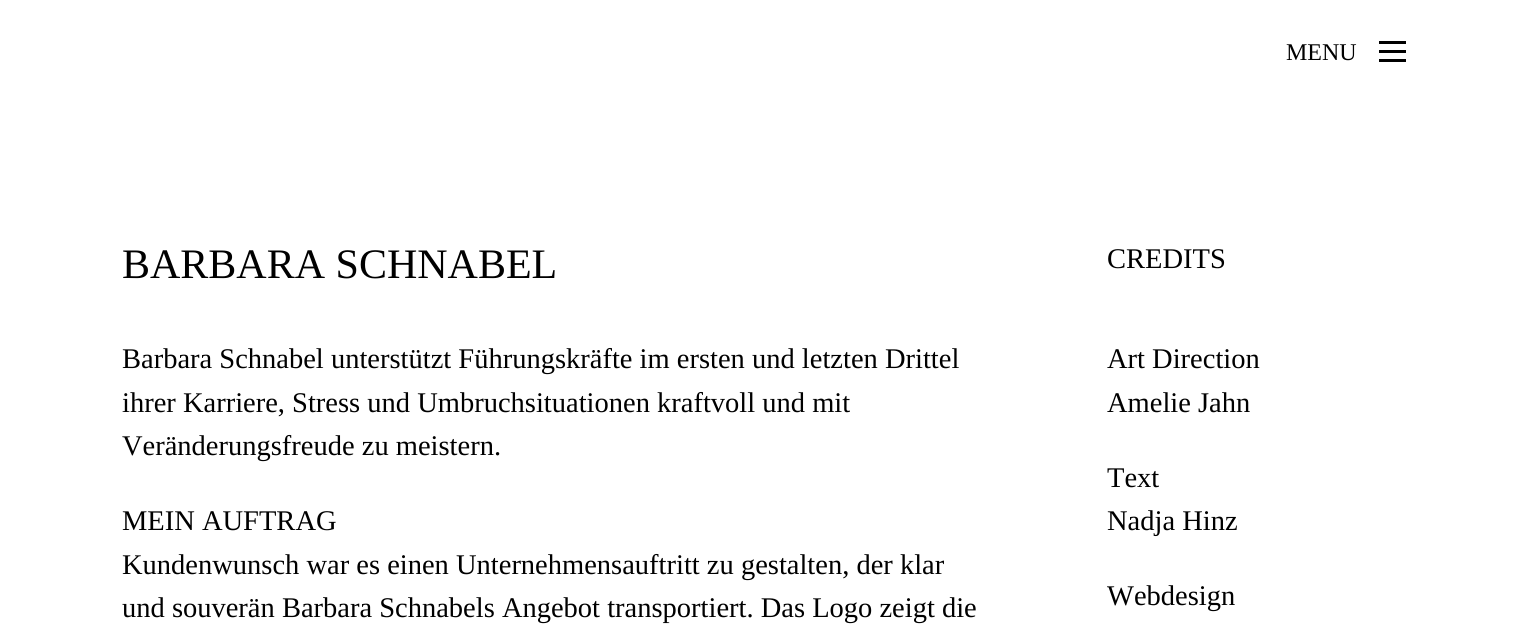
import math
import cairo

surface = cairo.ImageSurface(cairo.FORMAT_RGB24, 1527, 639)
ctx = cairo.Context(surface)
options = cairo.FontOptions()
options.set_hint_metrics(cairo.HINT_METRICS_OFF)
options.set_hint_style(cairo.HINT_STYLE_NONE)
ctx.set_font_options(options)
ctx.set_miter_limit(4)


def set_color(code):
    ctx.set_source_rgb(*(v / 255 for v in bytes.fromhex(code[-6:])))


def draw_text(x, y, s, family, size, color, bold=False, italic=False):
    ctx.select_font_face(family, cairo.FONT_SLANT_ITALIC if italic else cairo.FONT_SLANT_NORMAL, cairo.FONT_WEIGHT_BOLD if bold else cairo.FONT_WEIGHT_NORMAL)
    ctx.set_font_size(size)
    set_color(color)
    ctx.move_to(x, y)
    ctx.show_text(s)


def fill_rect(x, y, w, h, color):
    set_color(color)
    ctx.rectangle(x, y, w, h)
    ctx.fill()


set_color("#ffffff")
ctx.paint()
draw_text(1286, 60, "MENU", "Liberation Serif", 24, "#000000")
fill_rect(1379, 41, 27, 3, "#000000")
fill_rect(1379, 50, 27, 3, "#000000")
fill_rect(1379, 59, 27, 3, "#000000")
draw_text(122, 278, "BARBARA SCHNABEL", "Liberation Serif", 42, "#000000")
draw_text(1107, 268, "CREDITS", "Liberation Serif", 28.5, "#000000")
draw_text(122, 368, "Barbara Schnabel unterstützt Führungskräfte im ersten und letzten Drittel", "Liberation Serif", 28.5, "#000000")
draw_text(122, 412, "ihrer Karriere, Stress und Umbruchsituationen kraftvoll und mit", "Liberation Serif", 28.5, "#000000")
draw_text(122, 455, "Veränderungsfreude zu meistern.", "Liberation Serif", 28.5, "#000000")
draw_text(122, 530, "MEIN AUFTRAG", "Liberation Serif", 28.5, "#000000")
draw_text(122, 574, "Kundenwunsch war es einen Unternehmensauftritt zu gestalten, der klar", "Liberation Serif", 28.5, "#000000")
draw_text(122, 617, "und souverän Barbara Schnabels Angebot transportiert. Das Logo zeigt die", "Liberation Serif", 28.5, "#000000")
draw_text(1107, 368, "Art Direction", "Liberation Serif", 28.5, "#000000")
draw_text(1107, 412, "Amelie Jahn", "Liberation Serif", 28.5, "#000000")
draw_text(1107, 487, "Text", "Liberation Serif", 28.5, "#000000")
draw_text(1107, 530, "Nadja Hinz", "Liberation Serif", 28.5, "#000000")
draw_text(1107, 605, "Webdesign", "Liberation Serif", 28.5, "#000000")
surface.write_to_png("output.png")
